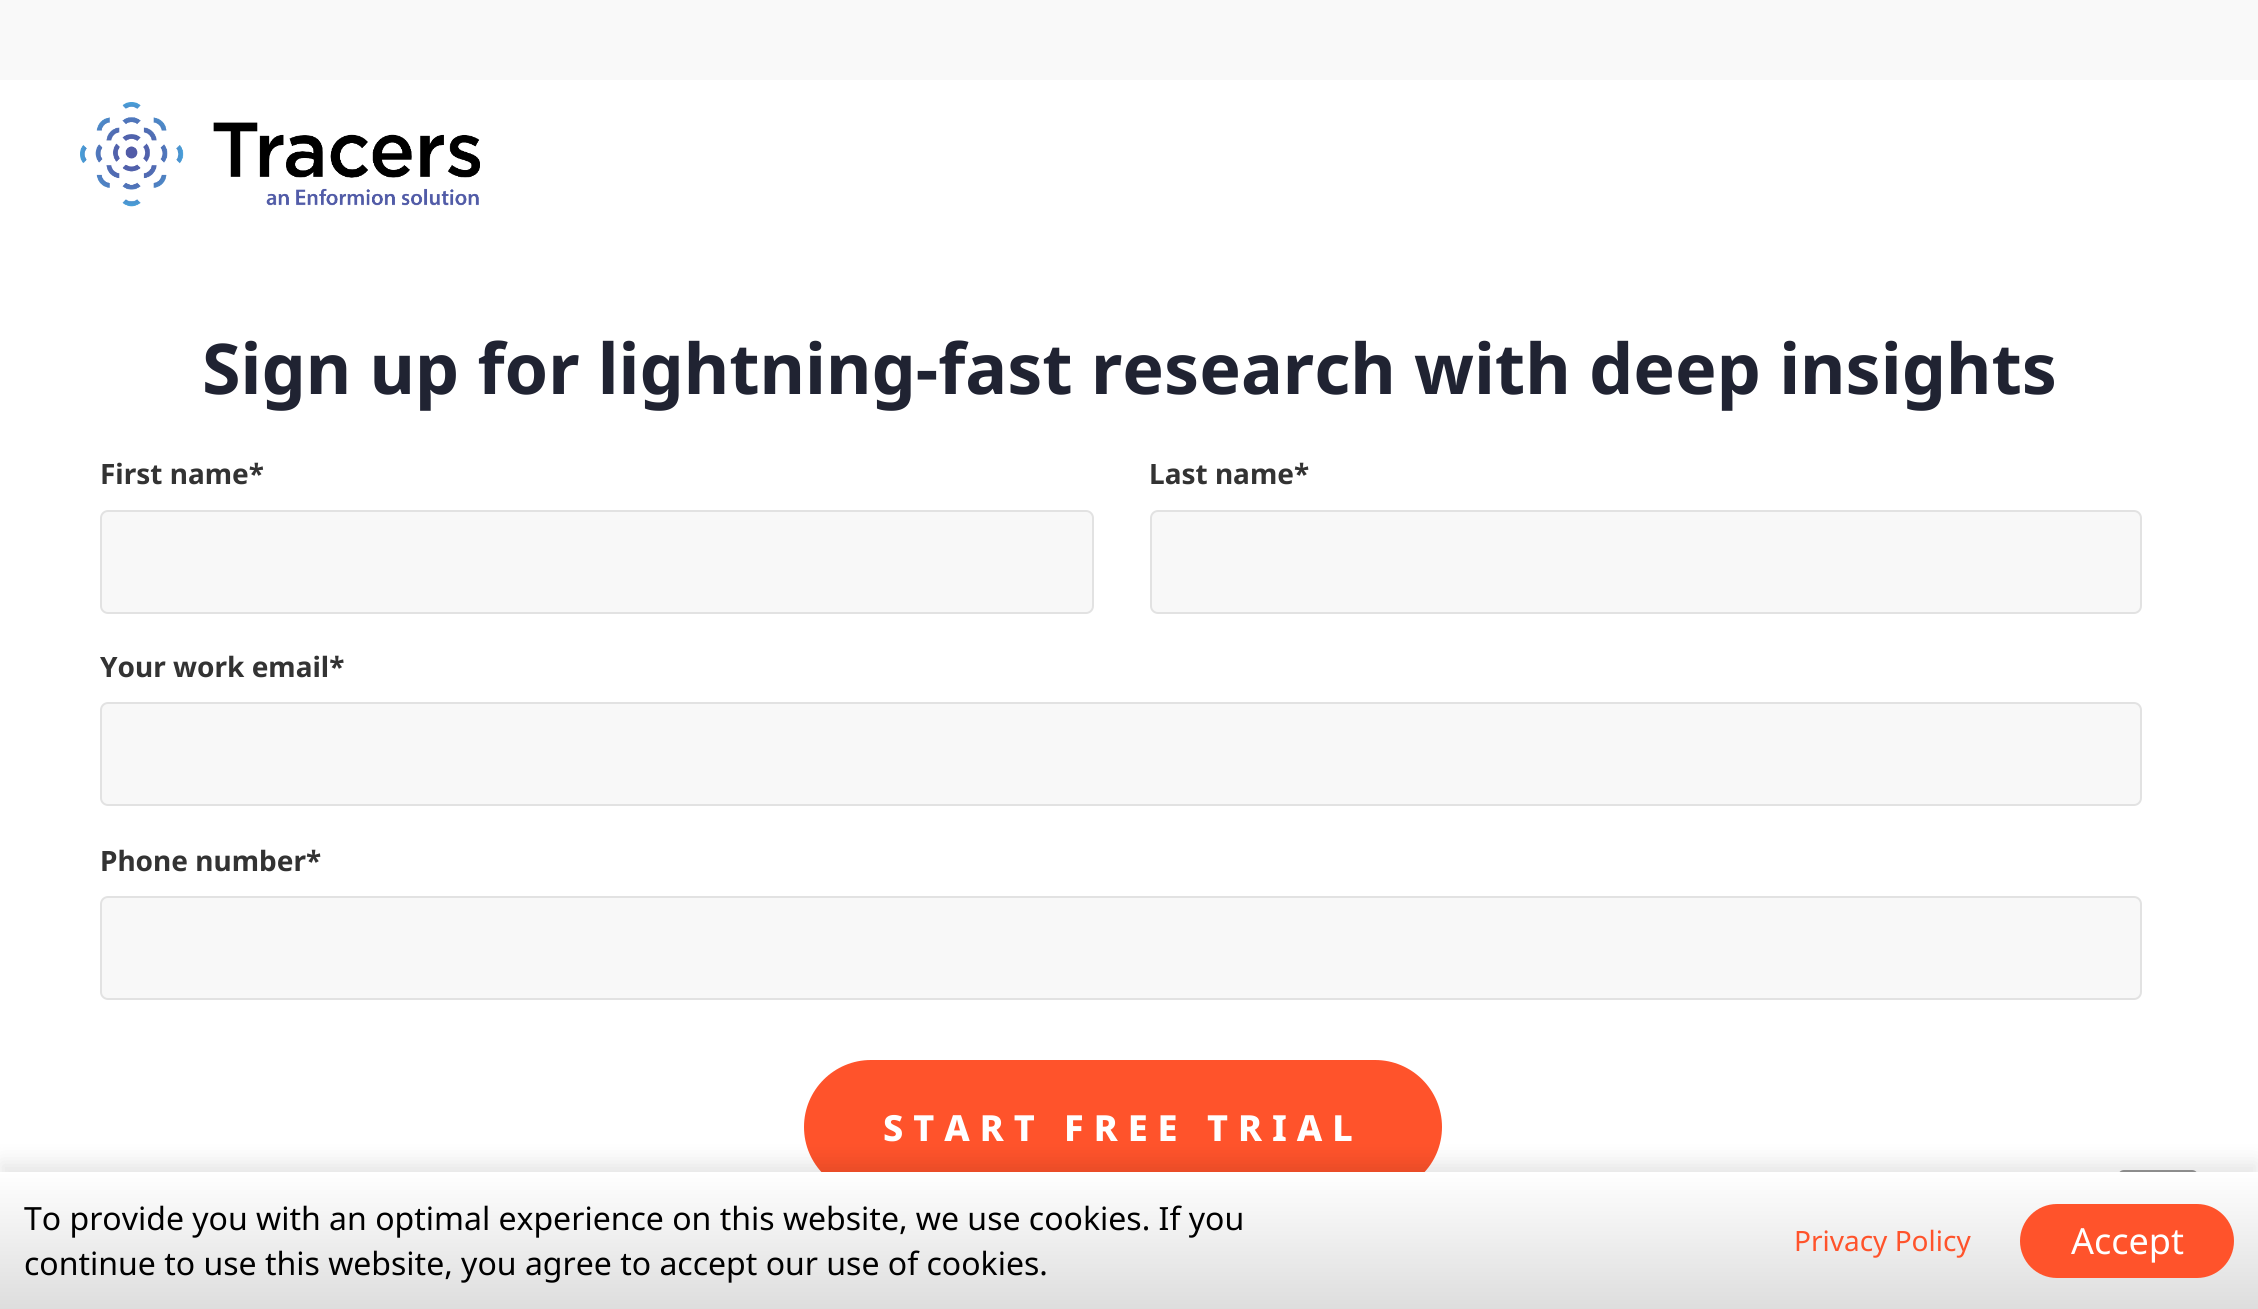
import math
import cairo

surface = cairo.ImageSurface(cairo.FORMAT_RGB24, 2258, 1309)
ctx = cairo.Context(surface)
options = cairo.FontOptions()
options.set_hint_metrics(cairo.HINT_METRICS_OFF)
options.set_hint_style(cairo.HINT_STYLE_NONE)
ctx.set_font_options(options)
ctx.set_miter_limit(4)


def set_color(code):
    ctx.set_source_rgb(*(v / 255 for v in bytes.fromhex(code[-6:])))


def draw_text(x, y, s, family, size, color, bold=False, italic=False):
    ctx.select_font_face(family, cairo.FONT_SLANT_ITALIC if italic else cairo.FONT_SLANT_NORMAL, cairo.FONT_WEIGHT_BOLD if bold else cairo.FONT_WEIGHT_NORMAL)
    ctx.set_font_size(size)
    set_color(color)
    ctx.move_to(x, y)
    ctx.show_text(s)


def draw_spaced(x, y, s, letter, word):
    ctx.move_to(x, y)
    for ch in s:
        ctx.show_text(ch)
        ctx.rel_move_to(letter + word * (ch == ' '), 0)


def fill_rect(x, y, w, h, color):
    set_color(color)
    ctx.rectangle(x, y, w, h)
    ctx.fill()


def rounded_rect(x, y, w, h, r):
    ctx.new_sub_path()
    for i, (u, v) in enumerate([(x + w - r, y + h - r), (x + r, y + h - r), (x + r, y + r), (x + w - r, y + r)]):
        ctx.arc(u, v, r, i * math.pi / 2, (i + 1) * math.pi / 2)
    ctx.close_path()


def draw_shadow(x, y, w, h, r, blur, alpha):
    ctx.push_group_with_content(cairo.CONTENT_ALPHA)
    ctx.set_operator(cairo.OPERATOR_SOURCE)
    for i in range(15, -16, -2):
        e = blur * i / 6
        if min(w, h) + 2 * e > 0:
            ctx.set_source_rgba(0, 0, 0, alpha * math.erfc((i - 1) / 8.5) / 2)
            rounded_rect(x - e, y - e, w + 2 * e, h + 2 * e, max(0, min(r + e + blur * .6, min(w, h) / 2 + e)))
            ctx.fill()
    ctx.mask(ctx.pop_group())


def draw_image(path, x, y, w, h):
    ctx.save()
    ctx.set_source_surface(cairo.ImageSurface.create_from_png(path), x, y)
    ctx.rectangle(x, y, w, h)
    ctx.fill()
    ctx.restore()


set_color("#ffffff")
ctx.paint()
draw_image("assets/img1.png", 80, 102, 400, 105)
fill_rect(0, 0, 2258, 80, "#f9f9f9")
draw_text(202, 394, "Sign up for lightning-fast research with deep insights", "Noto Sans", 70, "#202332", bold=True)
draw_text(100, 484, "First name*", "Noto Sans", 28, "#333333", bold=True)
set_color("#f8f8f8")
rounded_rect(101, 511, 992, 102, 7)
ctx.fill_preserve()
set_color("#e2e2e2")
ctx.stroke()
draw_text(1149, 484, "Last name*", "Noto Sans", 28, "#333333", bold=True)
set_color("#f8f8f8")
rounded_rect(1151, 511, 990, 102, 7)
ctx.fill_preserve()
set_color("#e2e2e2")
ctx.stroke()
draw_text(100, 677, "Your work email*", "Noto Sans", 28, "#333333", bold=True)
set_color("#f8f8f8")
rounded_rect(101, 703, 2040, 102, 7)
ctx.fill_preserve()
set_color("#e2e2e2")
ctx.stroke()
draw_text(100, 871, "Phone number*", "Noto Sans", 28, "#333333", bold=True)
set_color("#f8f8f8")
rounded_rect(101, 897, 2040, 102, 7)
ctx.fill_preserve()
set_color("#e2e2e2")
ctx.stroke()
set_color("#ff532b")
rounded_rect(804, 1060, 638, 134, 67)
ctx.fill()
ctx.select_font_face("Noto Sans ExtraBold")
ctx.set_font_size(36)
set_color("#ffffff")
draw_spaced(883, 1141, "START FREE TRIAL", 10, 0)
set_color("#999999")
rounded_rect(2118, 1170, 80, 80, 6)
ctx.fill()
set_color("#000000")
draw_shadow(0, 1162, 2258, 138, 0, 10, 0.1)
gradient = cairo.LinearGradient(1129, 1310, 1129, 1172)
gradient.add_color_stop_rgba(0, 0.867, 0.867, 0.867, 1)
gradient.add_color_stop_rgba(1, 1, 1, 1, 1)
ctx.set_source(gradient)
ctx.rectangle(0, 1172, 2258, 137)
ctx.fill()
draw_text(24, 1230, "To provide you with an optimal experience on this website, we use cookies. If you", "Noto Sans", 32, "#000000")
draw_text(24, 1275, "continue to use this website, you agree to accept our use of cookies.", "Noto Sans", 32, "#000000")
draw_text(1794, 1251, "Privacy Policy", "Noto Sans", 28, "#ff532b")
rounded_rect(2020, 1204, 214, 74, 37)
ctx.fill()
draw_text(2071, 1254, "Accept", "Noto Sans", 36, "#ffffff")
surface.write_to_png("output.png")
